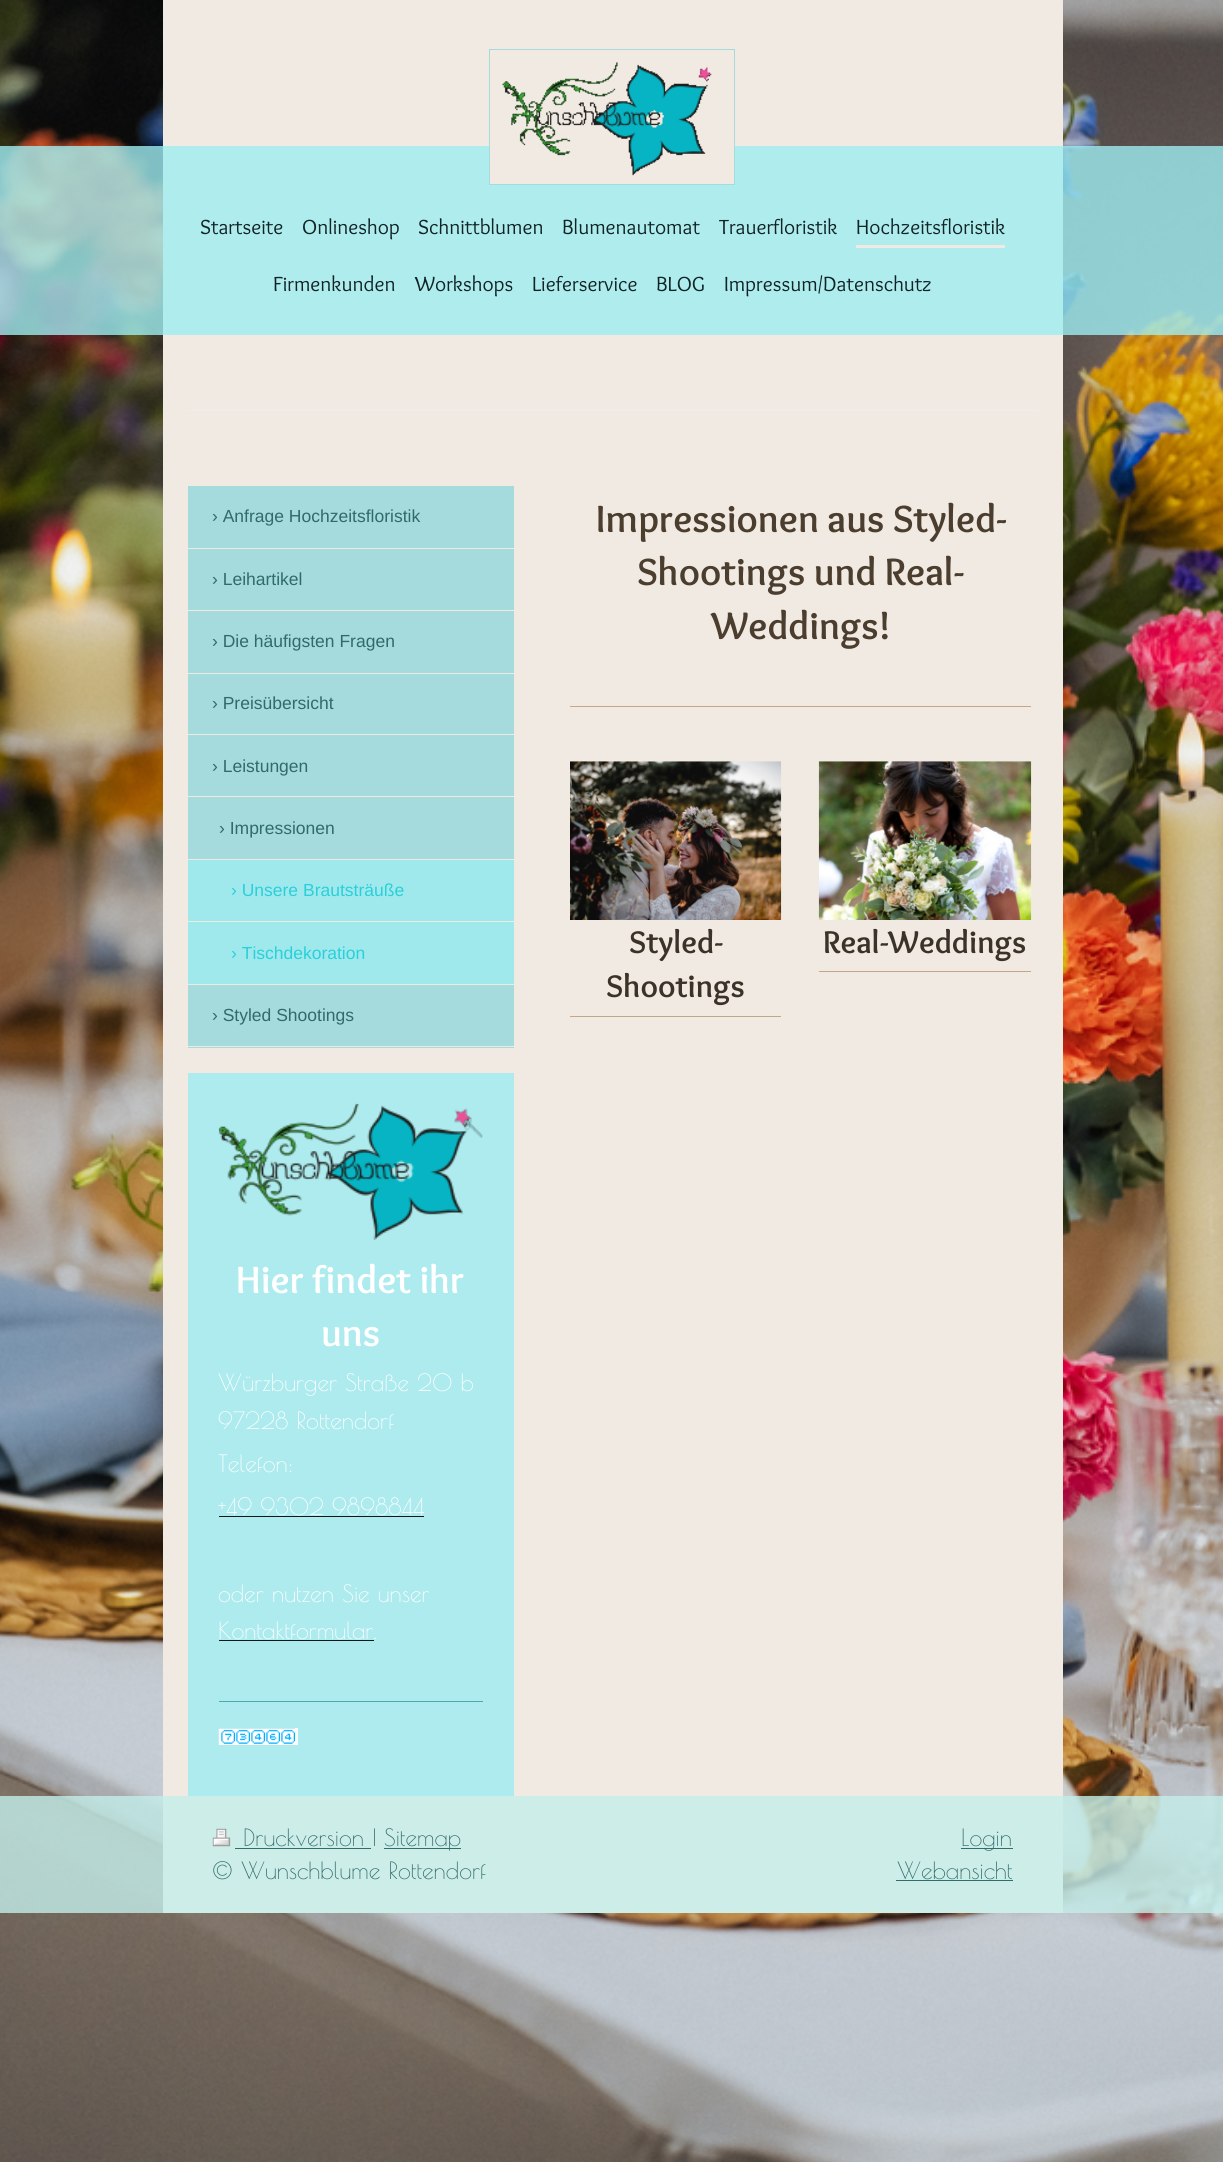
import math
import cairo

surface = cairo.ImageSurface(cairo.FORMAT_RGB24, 1223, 2162)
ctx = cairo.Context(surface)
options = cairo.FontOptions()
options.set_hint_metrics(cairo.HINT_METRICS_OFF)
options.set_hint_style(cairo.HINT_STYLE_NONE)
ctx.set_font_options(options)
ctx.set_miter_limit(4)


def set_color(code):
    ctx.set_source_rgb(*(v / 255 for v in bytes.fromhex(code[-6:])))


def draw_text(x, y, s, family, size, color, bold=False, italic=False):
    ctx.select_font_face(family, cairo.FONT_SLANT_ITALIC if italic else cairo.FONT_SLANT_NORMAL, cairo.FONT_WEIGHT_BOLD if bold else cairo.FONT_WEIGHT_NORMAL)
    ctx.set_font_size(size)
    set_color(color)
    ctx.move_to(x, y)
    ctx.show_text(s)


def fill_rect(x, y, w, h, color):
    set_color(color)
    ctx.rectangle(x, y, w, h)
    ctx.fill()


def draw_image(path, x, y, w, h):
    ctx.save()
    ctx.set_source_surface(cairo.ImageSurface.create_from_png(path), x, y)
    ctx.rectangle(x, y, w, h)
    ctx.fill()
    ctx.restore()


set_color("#ffffff")
ctx.paint()
draw_image("assets/img1.png", 0, 0, 1223, 2162)
fill_rect(163, 0, 900, 1913, "#f1eae2")
ctx.set_source_rgba(0.616, 0.925, 0.945, 0.8)
ctx.rectangle(0, 146, 1223, 189)
ctx.fill()
ctx.rectangle(489.5, 49.5, 245, 135)
set_color("#a5dbdd")
ctx.set_line_width(1)
ctx.stroke()
fill_rect(490, 146, 244, 38, "#f1eae2")
draw_image("assets/img2.png", 502, 62, 210, 114)
draw_text(200, 234, "Startseite", "Overlock", 21.25, "#112324")
draw_text(302, 234, "Onlineshop", "Overlock", 21.25, "#112324")
draw_text(418, 234, "Schnittblumen", "Overlock", 21.25, "#112324")
draw_text(562, 234, "Blumenautomat", "Overlock", 21.25, "#112324")
draw_text(719, 234, "Trauerfloristik", "Overlock", 21.25, "#112324")
fill_rect(856, 245, 149, 3, "#f1eae2")
draw_text(856, 234, "Hochzeitsfloristik", "Overlock", 21.25, "#112324")
draw_text(273, 291, "Firmenkunden", "Overlock", 21.25, "#112324")
draw_text(415, 291, "Workshops", "Overlock", 21.25, "#112324")
draw_text(532, 291, "Lieferservice", "Overlock", 21.25, "#112324")
draw_text(656, 291, "BLOG", "Overlock", 21.25, "#112324")
draw_text(724, 291, "Impressum/Datenschutz", "Overlock", 21.25, "#112324")
fill_rect(188, 410, 850, 1, "#eeeeee")
fill_rect(188, 486, 326, 562, "#a5dbdd")
fill_rect(188, 548, 326, 1, "#f1eae2")
draw_text(212, 522, "› Anfrage Hochzeitsfloristik", "Liberation Sans", 17.5, "#316a6c")
fill_rect(188, 610, 326, 1, "#f1eae2")
draw_text(212, 585, "› Leihartikel", "Liberation Sans", 17.5, "#316a6c")
fill_rect(188, 673, 326, 1, "#f1eae2")
draw_text(212, 647, "› Die häufigsten Fragen", "Liberation Sans", 17.5, "#316a6c")
fill_rect(188, 734, 326, 1, "#f1eae2")
draw_text(212, 709, "› Preisübersicht", "Liberation Sans", 17.5, "#316a6c")
fill_rect(188, 796, 326, 1, "#f1eae2")
draw_text(212, 772, "› Leistungen", "Liberation Sans", 17.5, "#316a6c")
fill_rect(188, 859, 326, 1, "#f1eae2")
draw_text(219, 834, "› Impressionen", "Liberation Sans", 17.5, "#316a6c")
fill_rect(188, 860, 326, 124, "#9fe9ed")
fill_rect(188, 921, 326, 1, "#f1eae2")
draw_text(231, 896, "› Unsere Brautsträuße", "Liberation Sans", 17.5, "#2bcfd9")
fill_rect(188, 984, 326, 1, "#f1eae2")
draw_text(231, 959, "› Tischdekoration", "Liberation Sans", 17.5, "#2bcfd9")
fill_rect(188, 1046, 326, 1, "#f1eae2")
draw_text(212, 1021, "› Styled Shootings", "Liberation Sans", 17.5, "#316a6c")
fill_rect(188, 1073, 326, 723, "#aeebee")
draw_image("assets/img3.png", 218, 1103, 265, 137)
draw_text(236, 1293, "Hier findet ihr", "Overlock", 39.4, "#ffffff", bold=True)
draw_text(321, 1346, "uns", "Overlock", 39.4, "#ffffff", bold=True)
draw_text(218, 1391, "Würzburger Straße 20 b", "Poiret One", 23.4, "#ffffff")
draw_text(218, 1429, "97228 Rottendorf", "Poiret One", 23.4, "#ffffff")
draw_text(218, 1472, "Telefon:", "Poiret One", 23.4, "#ffffff")
draw_text(218, 1515, "+49 9302 9898844", "Poiret One", 23.4, "#ffffff")
fill_rect(219, 1516, 205, 1, "#111818")
draw_text(218, 1602, "oder nutzen Sie unser", "Poiret One", 23.4, "#ffffff")
draw_text(218, 1639, "Kontaktformular.", "Poiret One", 23.4, "#ffffff")
fill_rect(219, 1640, 155, 1, "#111818")
fill_rect(219, 1701, 264, 1, "#4aabae")
draw_image("assets/img4.png", 218, 1728, 2, 17)
draw_image("assets/img5.png", 220, 1728, 15, 17)
draw_image("assets/img6.png", 235, 1728, 15, 17)
draw_image("assets/img7.png", 250, 1728, 15, 17)
draw_image("assets/img8.png", 265, 1728, 15, 17)
draw_image("assets/img9.png", 280, 1728, 15, 17)
fill_rect(295, 1728, 3, 17, "#fafafa")
draw_text(596, 532, "Impressionen aus Styled-", "Overlock", 39.4, "#4b3e2f", bold=True)
draw_text(637, 585, "Shootings und Real-", "Overlock", 39.4, "#4b3e2f", bold=True)
draw_text(711, 639, "Weddings!", "Overlock", 39.4, "#4b3e2f", bold=True)
fill_rect(570, 706, 461, 1, "#c4a785")
draw_image("assets/img10.png", 570, 761, 212, 159)
draw_text(629, 953, "Styled-", "Overlock", 32.5, "#3c3328", bold=True)
draw_text(606, 997, "Shootings", "Overlock", 32.5, "#3c3328", bold=True)
fill_rect(570, 1016, 211, 1, "#c4a785")
draw_image("assets/img11.png", 818, 761, 214, 159)
draw_text(823, 953, "Real-Weddings", "Overlock", 32.5, "#3c3328", bold=True)
fill_rect(819, 971, 212, 1, "#c4a785")
ctx.set_source_rgba(0.765, 0.929, 0.914, 0.8)
ctx.rectangle(0, 1796, 1223, 117)
ctx.fill()
draw_image("assets/img12.png", 212, 1828, 19, 19)
draw_text(243, 1846, "Druckversion |", "Poiret One", 23.4, "#316a6c")
fill_rect(235, 1848, 136, 1, "#2e6f69")
fill_rect(384, 1848, 77, 1, "#2e6f69")
draw_text(384, 1846, "Sitemap", "Poiret One", 23.4, "#316a6c")
draw_text(212, 1879, "© Wunschblume Rottendorf", "Poiret One", 23.4, "#316a6c")
fill_rect(961, 1848, 52, 1, "#2e6f69")
draw_text(961, 1846, "Login", "Poiret One", 23.4, "#316a6c")
draw_text(897, 1879, "Webansicht", "Poiret One", 23.4, "#316a6c")
fill_rect(896, 1880, 117, 1, "#2e6f69")
surface.write_to_png("output.png")
